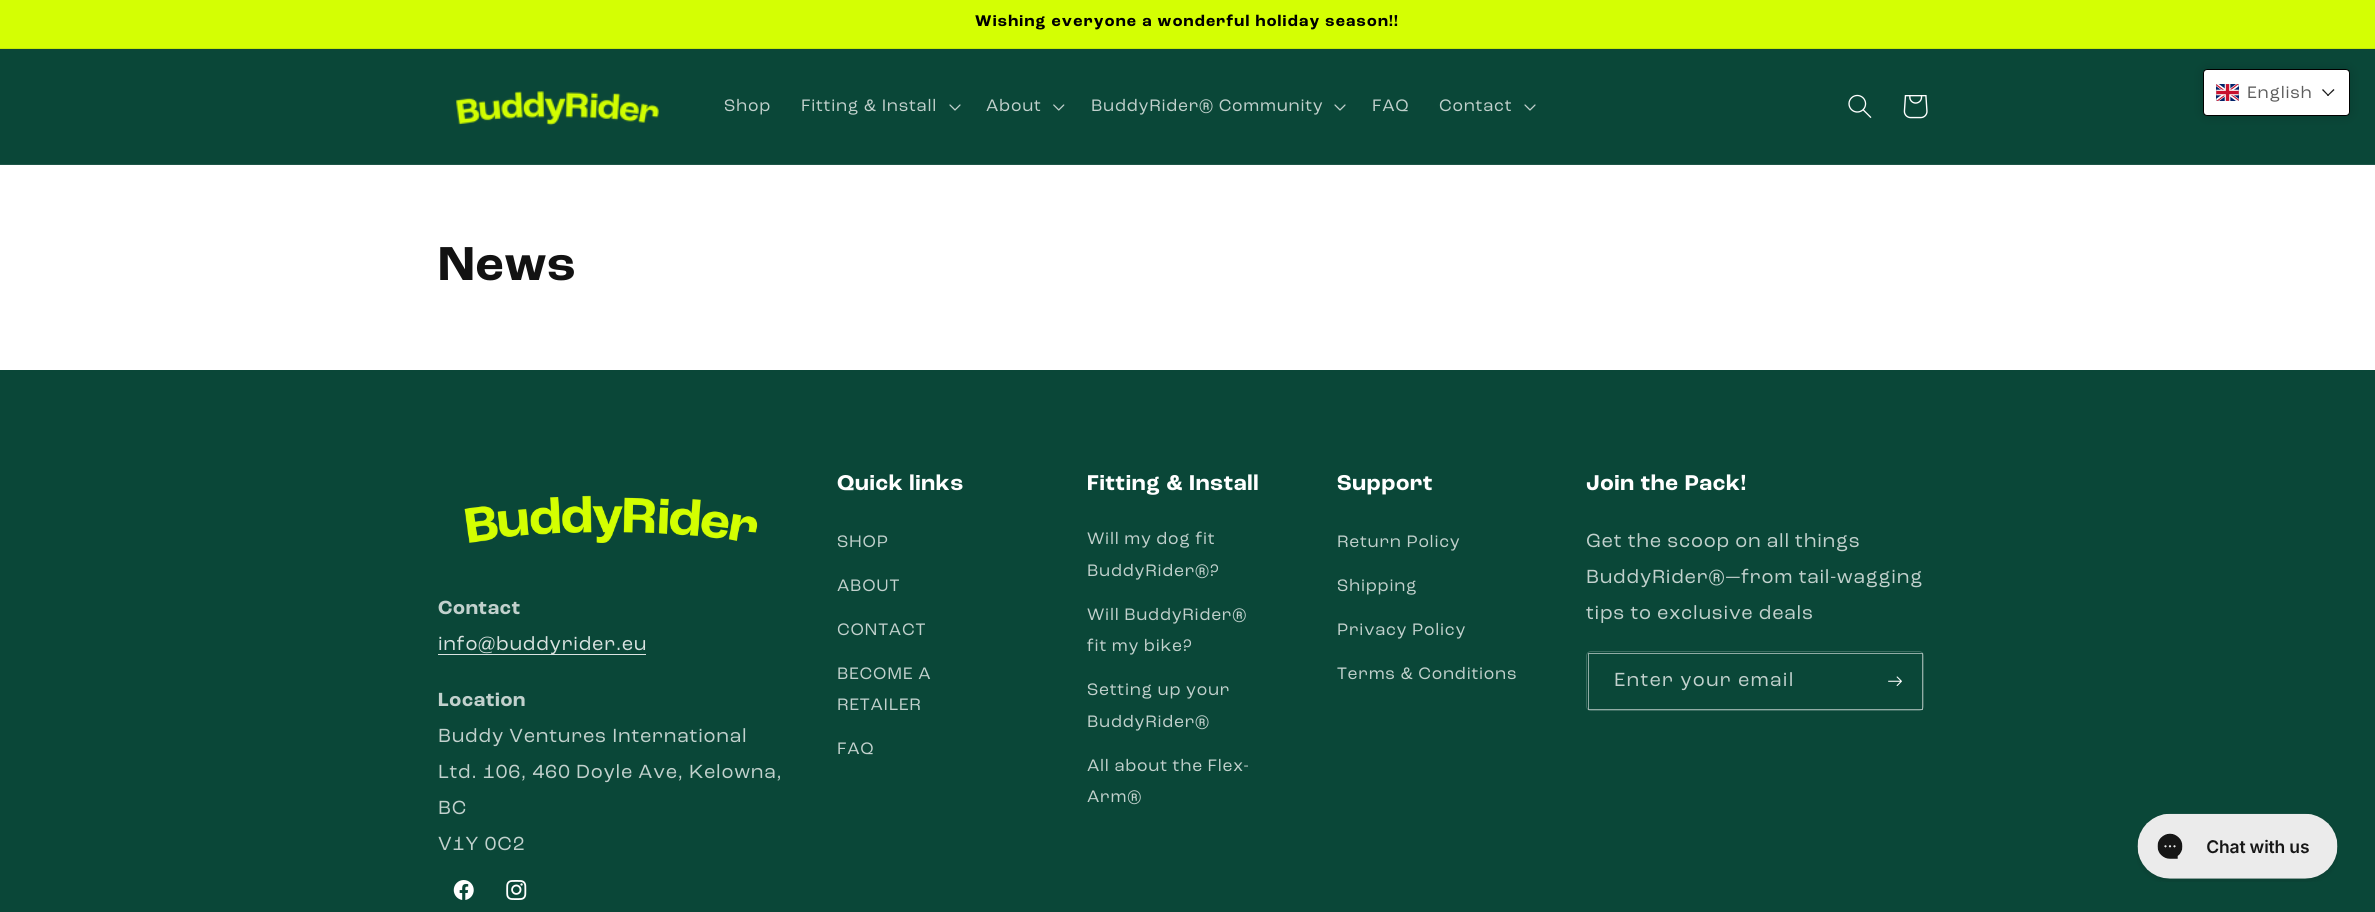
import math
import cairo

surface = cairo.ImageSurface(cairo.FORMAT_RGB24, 2375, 912)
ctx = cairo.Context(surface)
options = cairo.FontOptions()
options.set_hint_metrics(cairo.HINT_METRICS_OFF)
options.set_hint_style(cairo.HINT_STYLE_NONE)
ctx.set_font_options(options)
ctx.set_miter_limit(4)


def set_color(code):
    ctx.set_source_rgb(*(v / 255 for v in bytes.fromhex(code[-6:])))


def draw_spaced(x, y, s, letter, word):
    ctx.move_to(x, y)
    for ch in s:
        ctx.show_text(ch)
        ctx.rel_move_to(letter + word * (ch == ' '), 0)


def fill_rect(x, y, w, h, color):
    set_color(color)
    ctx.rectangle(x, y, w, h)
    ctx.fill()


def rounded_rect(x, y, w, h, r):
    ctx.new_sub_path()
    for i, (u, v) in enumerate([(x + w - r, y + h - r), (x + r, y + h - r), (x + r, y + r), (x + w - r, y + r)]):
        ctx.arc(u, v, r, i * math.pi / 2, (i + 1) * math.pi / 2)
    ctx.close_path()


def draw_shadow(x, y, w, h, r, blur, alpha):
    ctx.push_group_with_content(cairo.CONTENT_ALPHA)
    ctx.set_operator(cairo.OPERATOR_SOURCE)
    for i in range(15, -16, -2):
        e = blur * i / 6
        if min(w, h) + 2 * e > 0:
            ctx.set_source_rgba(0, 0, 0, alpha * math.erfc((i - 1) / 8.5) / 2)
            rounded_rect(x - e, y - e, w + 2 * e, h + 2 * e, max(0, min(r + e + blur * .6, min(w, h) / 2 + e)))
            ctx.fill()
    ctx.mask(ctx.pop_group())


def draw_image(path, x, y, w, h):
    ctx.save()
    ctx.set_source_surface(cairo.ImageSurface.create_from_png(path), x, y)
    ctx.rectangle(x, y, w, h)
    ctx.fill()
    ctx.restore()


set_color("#ffffff")
ctx.paint()
fill_rect(0, 0, 2375, 48, "#d4ff03")
fill_rect(0, 48, 2375, 1, "#c3eb03")
ctx.select_font_face("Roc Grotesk", cairo.FONT_SLANT_NORMAL, cairo.FONT_WEIGHT_BOLD)
ctx.set_font_size(16.25)
set_color("#000000")
draw_spaced(975, 26, "Wishing everyone a wonderful holiday season!!", 1.25, 0)
fill_rect(0, 49, 2375, 115, "#0a4738")
set_color("#000000")
draw_shadow(2203, 69, 147, 47, 4, 6, 0.15)
set_color("#ffffff")
rounded_rect(2203.5, 69.5, 146, 46, 3.5)
ctx.fill_preserve()
set_color("#000000")
ctx.set_line_width(1)
ctx.stroke()
draw_image("assets/img1.png", 2216, 84, 23, 17)
ctx.select_font_face("Roc Grotesk")
ctx.set_font_size(17.5)
set_color("#5c5c5c")
draw_spaced(2247, 98, "English", 0.75, 0)
set_color("#1a1a1a")
ctx.new_path()
ctx.move_to(2333.5, 89)
ctx.line_to(2334.5, 90)
ctx.line_to(2328, 96)
ctx.line_to(2327, 95.5)
ctx.close_path()
ctx.fill()
ctx.new_path()
ctx.move_to(2323, 89)
ctx.line_to(2329, 95.5)
ctx.line_to(2328, 96)
ctx.line_to(2322, 90)
ctx.close_path()
ctx.fill()
fill_rect(0, 164, 2375, 1, "#1e5648")
draw_image("assets/img2.png", 455, 91, 204, 35)
set_color("#c2d1cd")
draw_spaced(724, 111, "Shop", 0.75, 0)
draw_spaced(801, 111, "Fitting & Install", 0.75, 0)
draw_image("assets/img3.png", 949, 104, 12, 7)
draw_spaced(986, 111, "About", 0.75, 0)
draw_image("assets/img4.png", 1053, 104, 12, 7)
draw_spaced(1091, 111, "BuddyRider® Community", 0.75, 0)
draw_image("assets/img3.png", 1334, 104, 12, 7)
draw_spaced(1372, 111, "FAQ", 0.75, 0)
draw_spaced(1439, 111, "Contact", 0.75, 0)
draw_image("assets/img3.png", 1524, 104, 12, 7)
draw_image("assets/img5.png", 1848, 94, 24, 24)
draw_image("assets/img6.png", 1903, 95, 25, 24)
ctx.select_font_face("Roc Grotesk", cairo.FONT_SLANT_NORMAL, cairo.FONT_WEIGHT_BOLD)
ctx.set_font_size(50)
set_color("#121212")
draw_spaced(438, 280, "News", 0.75, 0)
fill_rect(0, 370, 2375, 542, "#0a4738")
ctx.set_font_size(22.5)
set_color("#ffffff")
draw_spaced(837, 490, "Quick links", 0.75, 0)
ctx.select_font_face("Roc Grotesk")
ctx.set_font_size(17.5)
set_color("#c2d1cd")
draw_spaced(837, 547, "SHOP", 0.75, 0)
draw_spaced(837, 591, "ABOUT", 0.75, 0)
draw_spaced(837, 635, "CONTACT", 0.75, 0)
draw_spaced(837, 679, "BECOME A", 0.75, 0)
draw_spaced(837, 710, "RETAILER", 0.75, 0)
draw_spaced(837, 754, "FAQ", 0.75, 0)
ctx.select_font_face("Roc Grotesk", cairo.FONT_SLANT_NORMAL, cairo.FONT_WEIGHT_BOLD)
ctx.set_font_size(22.5)
set_color("#ffffff")
draw_spaced(1087, 490, "Fitting & Install", 0.75, 0)
ctx.select_font_face("Roc Grotesk")
ctx.set_font_size(17.5)
set_color("#c2d1cd")
draw_spaced(1087, 544, "Will my dog fit", 0.75, 0)
draw_spaced(1087, 576, "BuddyRider®?", 0.75, 0)
draw_spaced(1087, 620, "Will BuddyRider®", 0.75, 0)
draw_spaced(1087, 651, "fit my bike?", 0.75, 0)
draw_spaced(1087, 695, "Setting up your", 0.75, 0)
draw_spaced(1087, 727, "BuddyRider®", 0.75, 0)
draw_spaced(1087, 771, "All about the Flex-", 0.75, 0)
draw_spaced(1087, 802, "Arm®", 0.75, 0)
ctx.select_font_face("Roc Grotesk", cairo.FONT_SLANT_NORMAL, cairo.FONT_WEIGHT_BOLD)
ctx.set_font_size(22.5)
set_color("#ffffff")
draw_spaced(1337, 490, "Support", 0.75, 0)
ctx.select_font_face("Roc Grotesk")
ctx.set_font_size(17.5)
set_color("#c2d1cd")
draw_spaced(1337, 547, "Return Policy", 0.75, 0)
draw_spaced(1337, 591, "Shipping", 0.75, 0)
draw_spaced(1337, 635, "Privacy Policy", 0.75, 0)
draw_spaced(1337, 679, "Terms & Conditions", 0.75, 0)
ctx.select_font_face("Roc Grotesk", cairo.FONT_SLANT_NORMAL, cairo.FONT_WEIGHT_BOLD)
ctx.set_font_size(22.5)
set_color("#ffffff")
draw_spaced(1586, 490, "Join the Pack!", 0.75, 0)
ctx.select_font_face("Roc Grotesk")
ctx.set_font_size(20)
set_color("#c2d1cd")
draw_spaced(1586, 547, "Get the scoop on all things", 0.75, 0)
draw_spaced(1586, 583, "BuddyRider®—from tail-wagging", 0.75, 0)
draw_spaced(1586, 619, "tips to exclusive deals", 0.75, 0)
rounded_rect(1586.5, 651.5, 337, 59, 4.5)
set_color("#3b6c60")
ctx.stroke()
draw_image("assets/img7.png", 1888, 676, 14, 10)
ctx.rectangle(1588.5, 653.5, 334, 56)
ctx.set_source_rgba(1, 1, 1, 0.55)
ctx.stroke()
set_color("#c2d1cd")
draw_spaced(1614, 686, "Enter your email", 1.25, 0)
draw_image("assets/img8.png", 464, 495, 294, 48)
ctx.select_font_face("Roc Grotesk", cairo.FONT_SLANT_NORMAL, cairo.FONT_WEIGHT_BOLD)
draw_spaced(438, 614, "Contact", 0.75, 0)
fill_rect(438, 654, 208, 1, "#dae3e1")
ctx.select_font_face("Roc Grotesk")
draw_spaced(438, 650, "info@buddyrider.eu", 0.75, 0)
ctx.select_font_face("Roc Grotesk", cairo.FONT_SLANT_NORMAL, cairo.FONT_WEIGHT_BOLD)
set_color("#c2d1cd")
draw_spaced(438, 706, "Location", 0.75, 0)
ctx.select_font_face("Roc Grotesk")
draw_spaced(438, 742, "Buddy Ventures International", 0.75, 0)
draw_spaced(438, 778, "Ltd. 106, 460 Doyle Ave, Kelowna,", 0.75, 0)
draw_spaced(438, 814, "BC", 0.75, 0)
draw_spaced(438, 850, "V1Y 0C2", 0.75, 0)
draw_image("assets/img9.png", 453, 880, 21, 20)
draw_image("assets/img10.png", 506, 880, 21, 20)
draw_image("assets/img11.png", 2137, 813, 201, 69)
surface.write_to_png("output.png")
